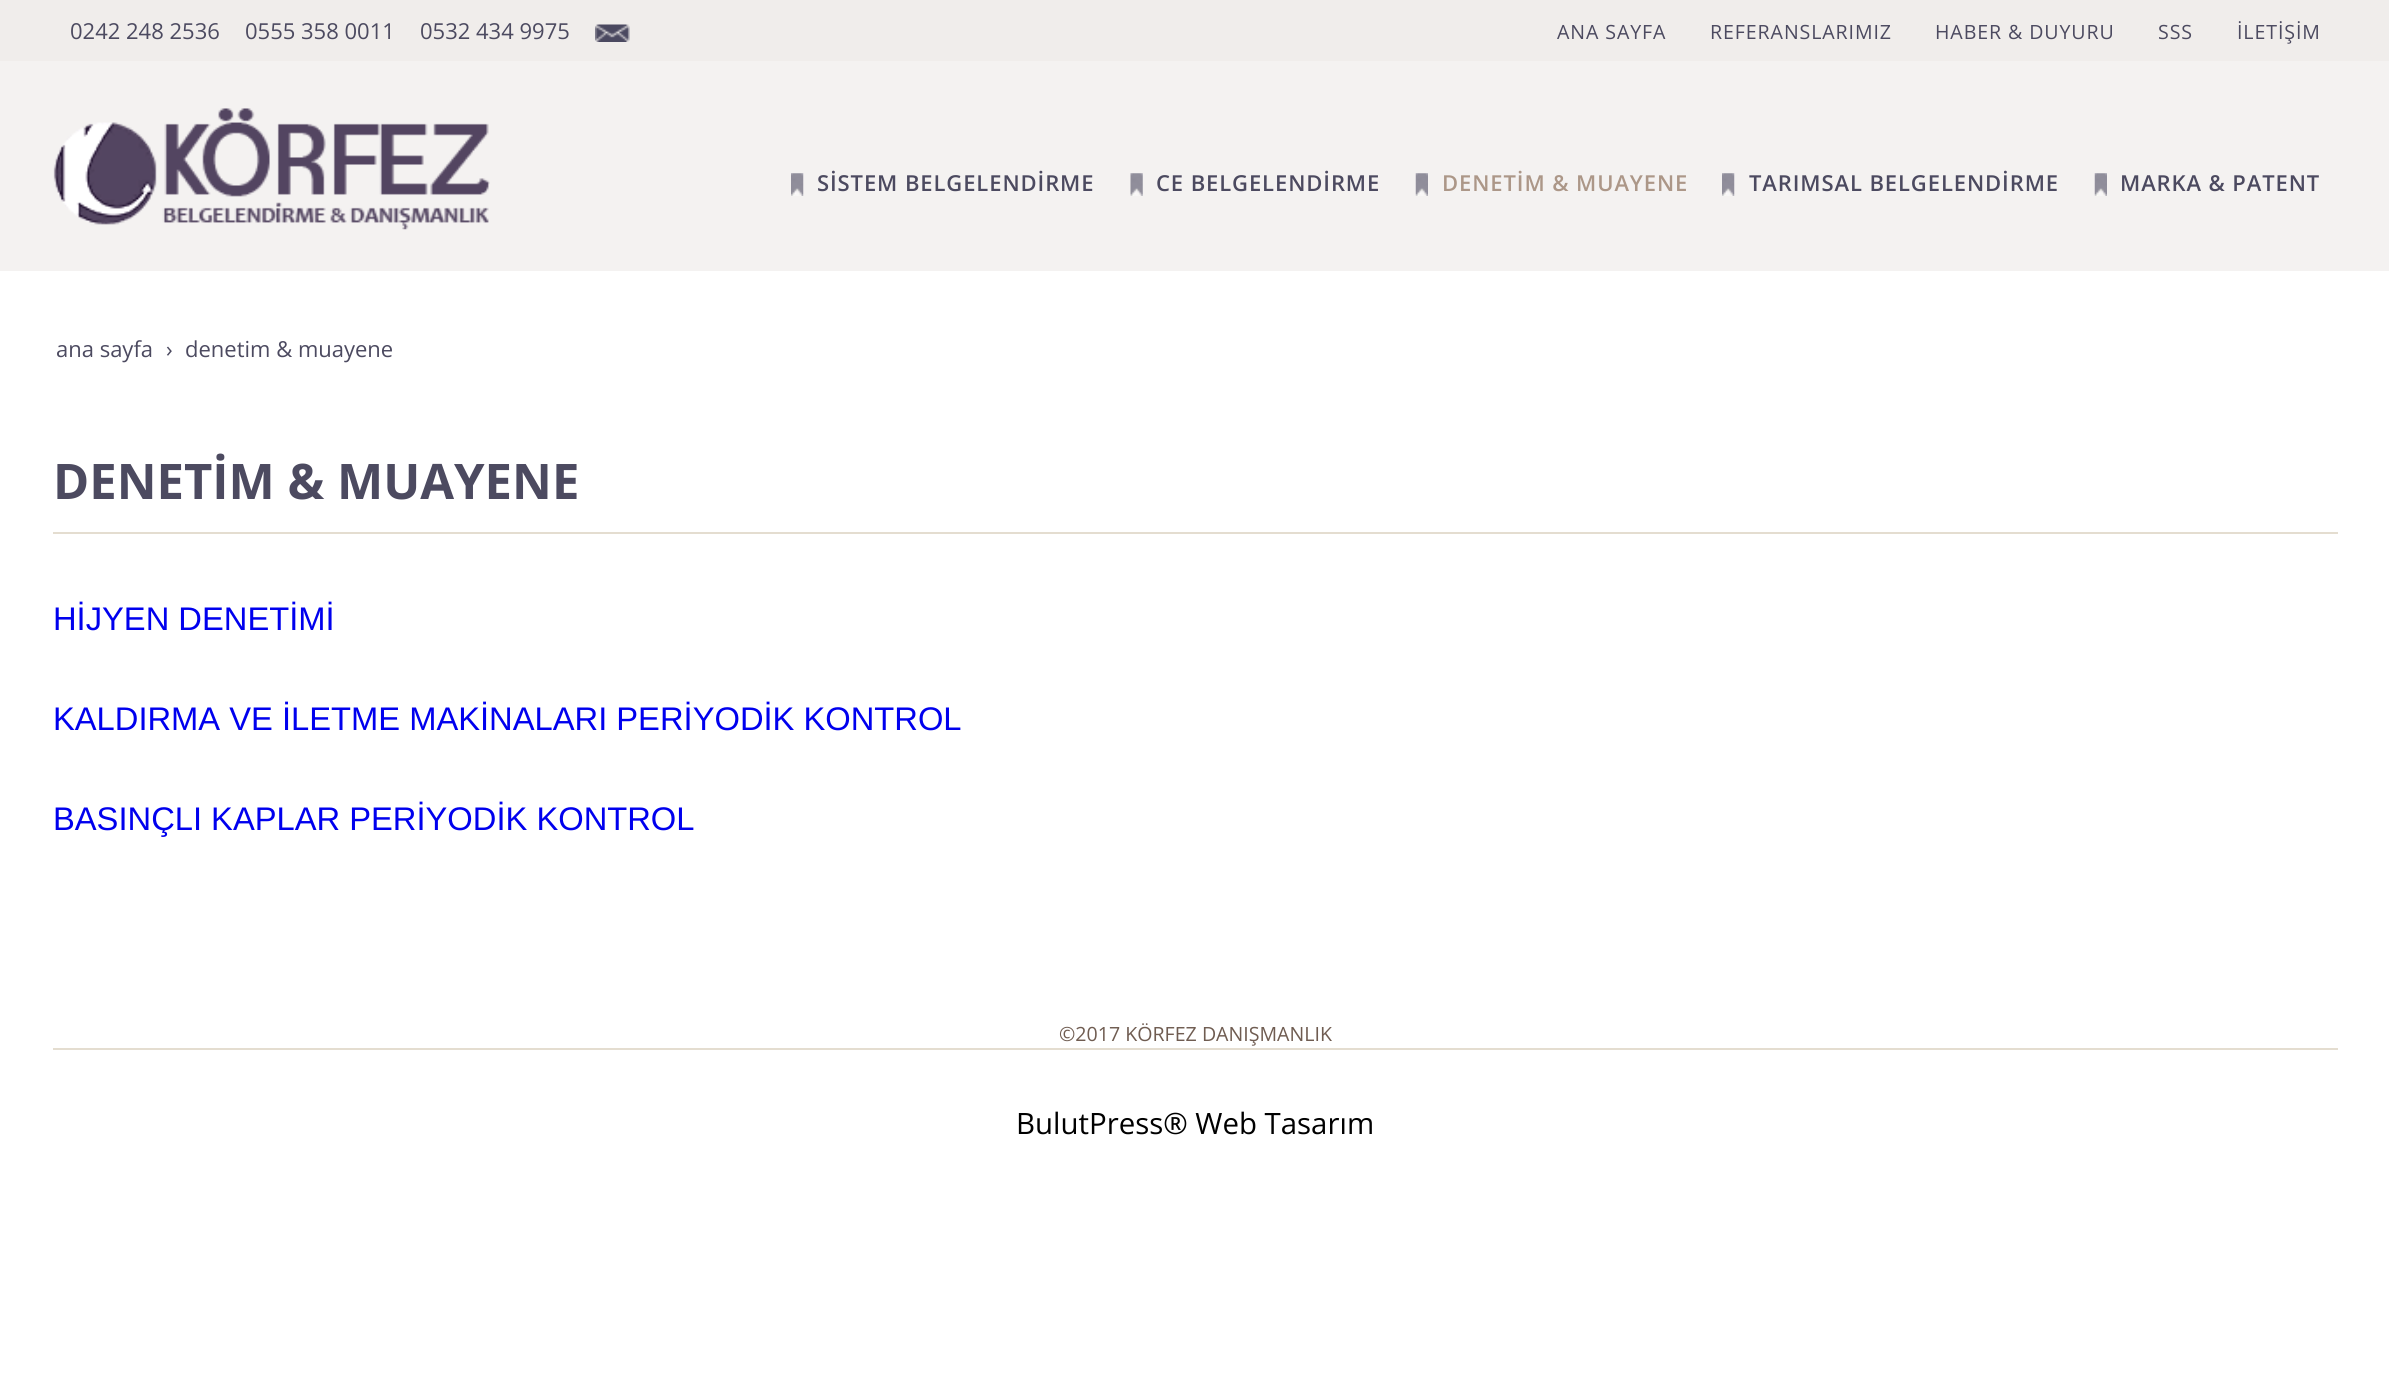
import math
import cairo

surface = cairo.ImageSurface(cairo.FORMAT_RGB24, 2389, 1390)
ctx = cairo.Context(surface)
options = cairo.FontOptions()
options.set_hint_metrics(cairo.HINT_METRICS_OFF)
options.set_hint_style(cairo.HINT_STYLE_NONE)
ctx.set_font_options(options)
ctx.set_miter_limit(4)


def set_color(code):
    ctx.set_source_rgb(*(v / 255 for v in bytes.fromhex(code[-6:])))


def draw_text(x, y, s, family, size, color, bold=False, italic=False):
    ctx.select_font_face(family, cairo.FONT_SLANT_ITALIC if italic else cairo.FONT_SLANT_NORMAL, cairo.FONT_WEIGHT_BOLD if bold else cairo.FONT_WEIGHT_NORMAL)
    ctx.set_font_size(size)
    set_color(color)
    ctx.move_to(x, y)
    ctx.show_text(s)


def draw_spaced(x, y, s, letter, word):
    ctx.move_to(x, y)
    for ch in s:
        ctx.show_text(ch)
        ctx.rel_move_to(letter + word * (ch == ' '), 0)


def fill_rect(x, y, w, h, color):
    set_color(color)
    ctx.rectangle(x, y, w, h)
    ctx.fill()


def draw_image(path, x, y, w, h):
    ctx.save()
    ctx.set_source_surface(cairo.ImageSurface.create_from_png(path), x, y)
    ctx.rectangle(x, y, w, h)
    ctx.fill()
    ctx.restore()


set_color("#ffffff")
ctx.paint()
fill_rect(0, 0, 2389, 61, "#f0edeb")
draw_text(70, 39, "0242 248 2536", "Open Sans", 22, "#4c4a60")
draw_text(245, 39, "0555 358 0011", "Open Sans", 22, "#4c4a60")
draw_text(420, 39, "0532 434 9975", "Open Sans", 22, "#4c4a60")
draw_image("assets/img1.png", 595, 24, 35, 18)
ctx.set_font_size(19.6)
draw_spaced(1557, 39, "ANA SAYFA", 0.9, 0)
draw_spaced(1710, 39, "REFERANSLARIMIZ", 0.9, 0)
draw_spaced(1935, 39, "HABER & DUYURU", 0.9, 0)
draw_spaced(2158, 39, "SSS", 0.9, 0)
draw_spaced(2237, 39, "İLETİŞİM", 0.9, 0)
fill_rect(0, 61, 2389, 210, "#f4f2f1")
draw_image("assets/img2.png", 53, 108, 437, 122)
draw_image("assets/img3.png", 791, 173, 13, 23)
ctx.select_font_face("Open Sans SemiBold")
ctx.set_font_size(22)
set_color("#4c4a60")
draw_spaced(817, 191, "SİSTEM BELGELENDİRME", 0.9, 0)
draw_image("assets/img4.png", 1130, 173, 13, 23)
draw_spaced(1156, 191, "CE BELGELENDİRME", 0.9, 0)
draw_image("assets/img5.png", 1415, 173, 13, 23)
set_color("#ac9788")
draw_spaced(1442, 191, "DENETİM & MUAYENE", 0.9, 0)
draw_image("assets/img3.png", 1722, 173, 13, 23)
set_color("#4c4a60")
draw_spaced(1749, 191, "TARIMSAL BELGELENDİRME", 0.9, 0)
draw_image("assets/img6.png", 2094, 173, 13, 23)
draw_spaced(2120, 191, "MARKA & PATENT", 0.9, 0)
draw_text(56, 357, "ana sayfa", "Open Sans", 22, "#4c4a60")
draw_text(166, 357, "›", "Open Sans", 22, "#4c4a60")
draw_text(185, 357, "denetim & muayene", "Open Sans", 22, "#4c4a60")
fill_rect(53, 532, 2285, 2, "#e4ddd0")
draw_text(53, 499, "DENETİM & MUAYENE", "Open Sans", 49, "#4c4a60", bold=True)
draw_text(53, 630, "HİJYEN DENETİMİ", "Liberation Sans", 32.7, "#0000ee")
draw_text(53, 730, "KALDIRMA VE İLETME MAKİNALARI PERİYODİK KONTROL", "Liberation Sans", 32.7, "#0000ee")
draw_text(53, 830, "BASINÇLI KAPLAR PERİYODİK KONTROL", "Liberation Sans", 32.7, "#0000ee")
fill_rect(53, 1048, 2285, 2, "#e4ddd0")
draw_text(1059, 1041, "©2017 KÖRFEZ DANIŞMANLIK", "Open Sans", 19.6, "#6f5c51")
draw_text(1016, 1134, "BulutPress® Web Tasarım", "Open Sans", 29.4, "#000000")
surface.write_to_png("output.png")
